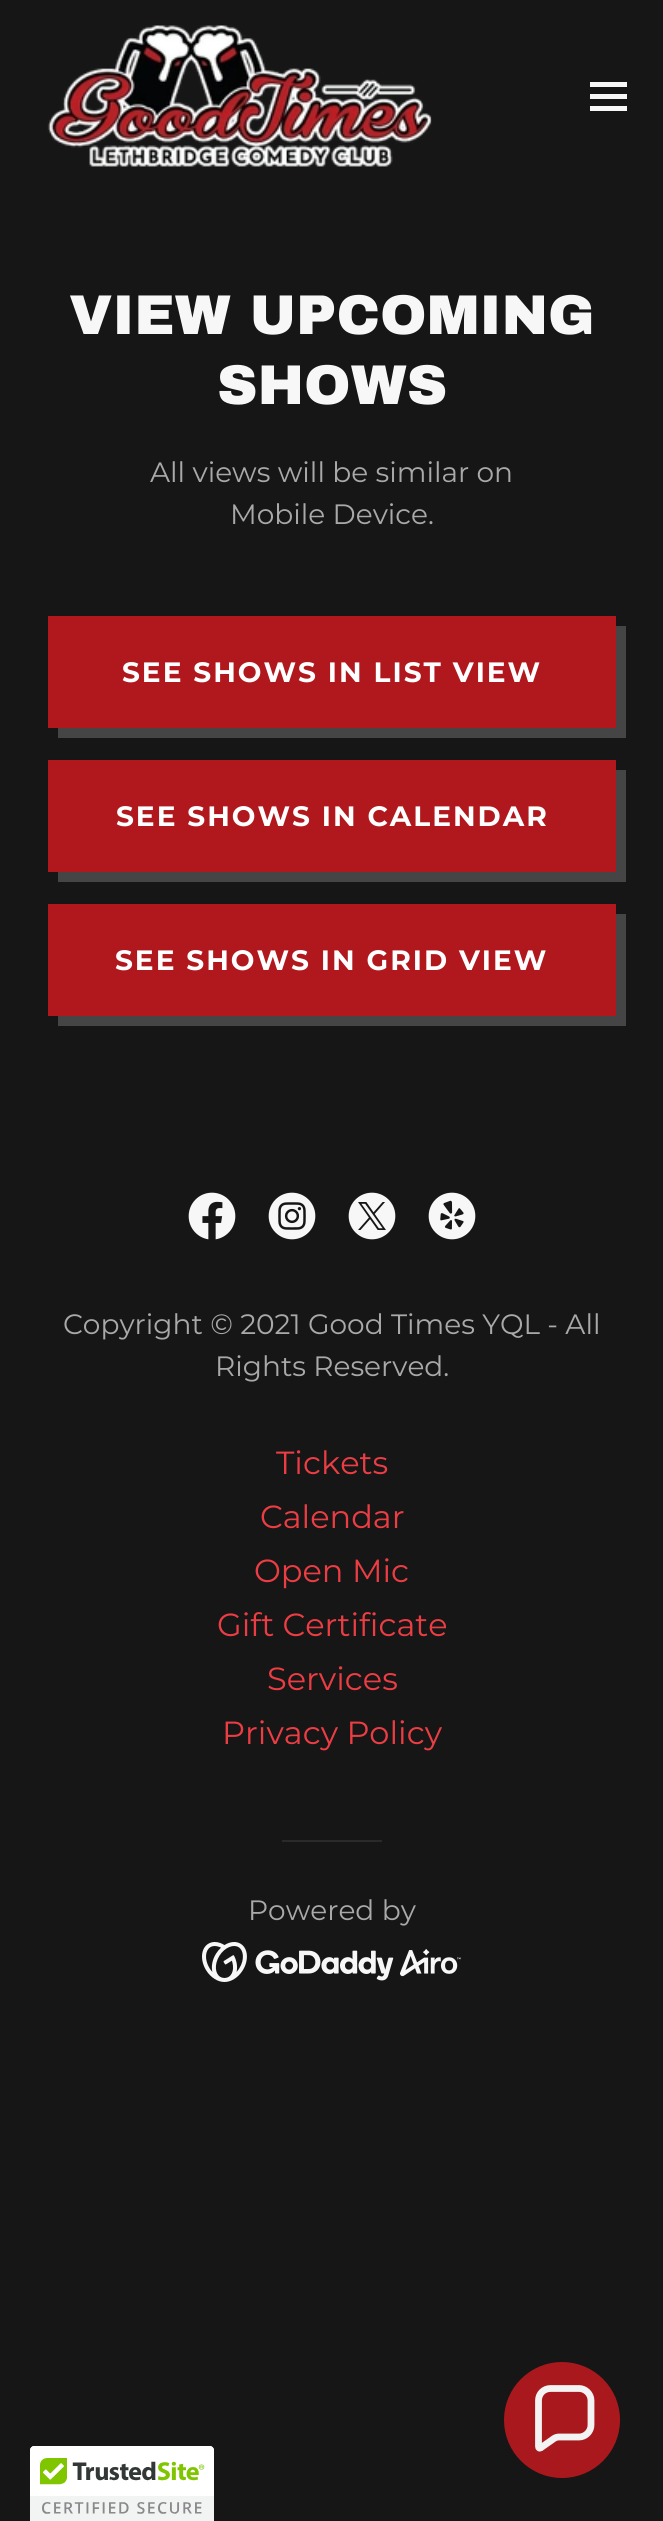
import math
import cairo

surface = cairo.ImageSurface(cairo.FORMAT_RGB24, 663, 2521)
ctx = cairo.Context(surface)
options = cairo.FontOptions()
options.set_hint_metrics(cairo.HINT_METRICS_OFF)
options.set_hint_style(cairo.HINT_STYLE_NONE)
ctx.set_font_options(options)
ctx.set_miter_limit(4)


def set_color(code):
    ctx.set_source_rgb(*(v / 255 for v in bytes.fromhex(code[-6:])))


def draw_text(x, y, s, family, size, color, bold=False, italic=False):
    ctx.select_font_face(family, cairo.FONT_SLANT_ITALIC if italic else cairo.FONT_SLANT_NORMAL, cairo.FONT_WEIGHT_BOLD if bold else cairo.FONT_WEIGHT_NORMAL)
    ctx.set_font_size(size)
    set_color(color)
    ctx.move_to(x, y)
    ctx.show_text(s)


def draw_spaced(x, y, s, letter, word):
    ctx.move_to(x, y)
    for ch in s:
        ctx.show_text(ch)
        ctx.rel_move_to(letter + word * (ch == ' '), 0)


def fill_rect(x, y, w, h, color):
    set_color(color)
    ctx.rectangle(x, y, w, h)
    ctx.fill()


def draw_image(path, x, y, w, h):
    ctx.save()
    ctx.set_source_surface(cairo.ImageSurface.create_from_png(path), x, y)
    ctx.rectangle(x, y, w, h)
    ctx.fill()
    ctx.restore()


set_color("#161616")
ctx.paint()
draw_image("assets/img1.png", 47, 25, 385, 142)
fill_rect(590, 82, 37, 5, "#f7f7f7")
fill_rect(590, 94, 37, 5, "#f7f7f7")
fill_rect(590, 106, 37, 5, "#f7f7f7")
draw_text(69, 334, "VIEW UPCOMING", "Archivo Black Black", 56, "#f7f7f7")
draw_text(217, 404, "SHOWS", "Archivo Black Black", 56, "#f7f7f7")
draw_text(150, 482, "All views will be similar on", "Montserrat", 28, "#a9a9a9")
draw_text(230, 524, "Mobile Device.", "Montserrat", 28, "#a9a9a9")
fill_rect(48, 616, 568, 112, "#b1181d")
set_color("#454545")
ctx.new_path()
ctx.move_to(58, 728)
ctx.line_to(58, 738)
ctx.line_to(626, 738)
ctx.line_to(626, 626)
ctx.line_to(616, 626)
ctx.line_to(616, 728)
ctx.close_path()
ctx.fill()
ctx.select_font_face("Montserrat", cairo.FONT_SLANT_NORMAL, cairo.FONT_WEIGHT_BOLD)
set_color("#ffffff")
draw_spaced(122, 682, "SEE SHOWS IN LIST VIEW", 2, 0)
fill_rect(48, 760, 568, 112, "#b1181d")
set_color("#454545")
ctx.new_path()
ctx.move_to(58, 872)
ctx.line_to(58, 882)
ctx.line_to(626, 882)
ctx.line_to(626, 770)
ctx.line_to(616, 770)
ctx.line_to(616, 872)
ctx.close_path()
ctx.fill()
set_color("#ffffff")
draw_spaced(116, 826, "SEE SHOWS IN CALENDAR", 2, 0)
fill_rect(48, 904, 568, 112, "#b1181d")
set_color("#454545")
ctx.new_path()
ctx.move_to(58, 1016)
ctx.line_to(58, 1026)
ctx.line_to(626, 1026)
ctx.line_to(626, 914)
ctx.line_to(616, 914)
ctx.line_to(616, 1016)
ctx.close_path()
ctx.fill()
set_color("#ffffff")
draw_spaced(115, 970, "SEE SHOWS IN GRID VIEW", 2, 0)
draw_image("assets/img2.png", 188, 1192, 48, 48)
draw_image("assets/img3.png", 268, 1192, 48, 48)
draw_image("assets/img4.png", 348, 1192, 48, 48)
draw_image("assets/img5.png", 428, 1192, 48, 48)
draw_text(63, 1334, "Copyright © 2021 Good Times YQL - All", "Montserrat", 28, "#a9a9a9")
draw_text(215, 1376, "Rights Reserved.", "Montserrat", 28, "#a9a9a9")
draw_text(276, 1474, "Tickets", "Montserrat", 32, "#eb3d43")
draw_text(260, 1528, "Calendar", "Montserrat", 32, "#eb3d43")
draw_text(254, 1582, "Open Mic", "Montserrat", 32, "#eb3d43")
draw_text(217, 1636, "Gift Certificate", "Montserrat", 32, "#eb3d43")
draw_text(267, 1690, "Services", "Montserrat", 32, "#eb3d43")
draw_text(222, 1744, "Privacy Policy", "Montserrat", 32, "#eb3d43")
fill_rect(282, 1840, 100, 2, "#2a2a2a")
draw_text(248, 1920, "Powered by", "Montserrat", 28, "#a9a9a9")
draw_image("assets/img6.png", 202, 1942, 259, 40)
set_color("#ffffff")
ctx.new_path()
ctx.move_to(34, 2446)
ctx.line_to(210, 2446)
ctx.curve_to(212, 2446, 214, 2448, 214, 2450)
ctx.line_to(214, 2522)
ctx.line_to(30, 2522)
ctx.line_to(30, 2450)
ctx.curve_to(30, 2448, 32, 2446, 34, 2446)
ctx.close_path()
ctx.fill()
draw_image("assets/img7.png", 30, 2446, 184, 75)
set_color("#a9181d")
ctx.arc(562, 2420, 58, 0, 2 * math.pi)
ctx.fill()
ctx.new_path()
ctx.move_to(579, 2388.5)
ctx.line_to(550.5, 2388.5)
ctx.curve_to(543.5, 2388.5, 538.5, 2394, 538.5, 2400.5)
ctx.line_to(538.5, 2446.5)
ctx.curve_to(538.5, 2448, 539.5, 2448.5, 540.5, 2448)
ctx.line_to(554, 2438.5)
ctx.curve_to(555.5, 2437.5, 557.5, 2437, 559, 2437)
ctx.line_to(579, 2437)
ctx.curve_to(585.5, 2437, 591, 2431.5, 591, 2425)
ctx.line_to(591, 2400.5)
ctx.curve_to(591, 2394, 585.5, 2388.5, 579, 2388.5)
ctx.close_path()
set_color("#f3f3f3")
ctx.set_line_width(6.8)
ctx.stroke()
surface.write_to_png("output.png")
